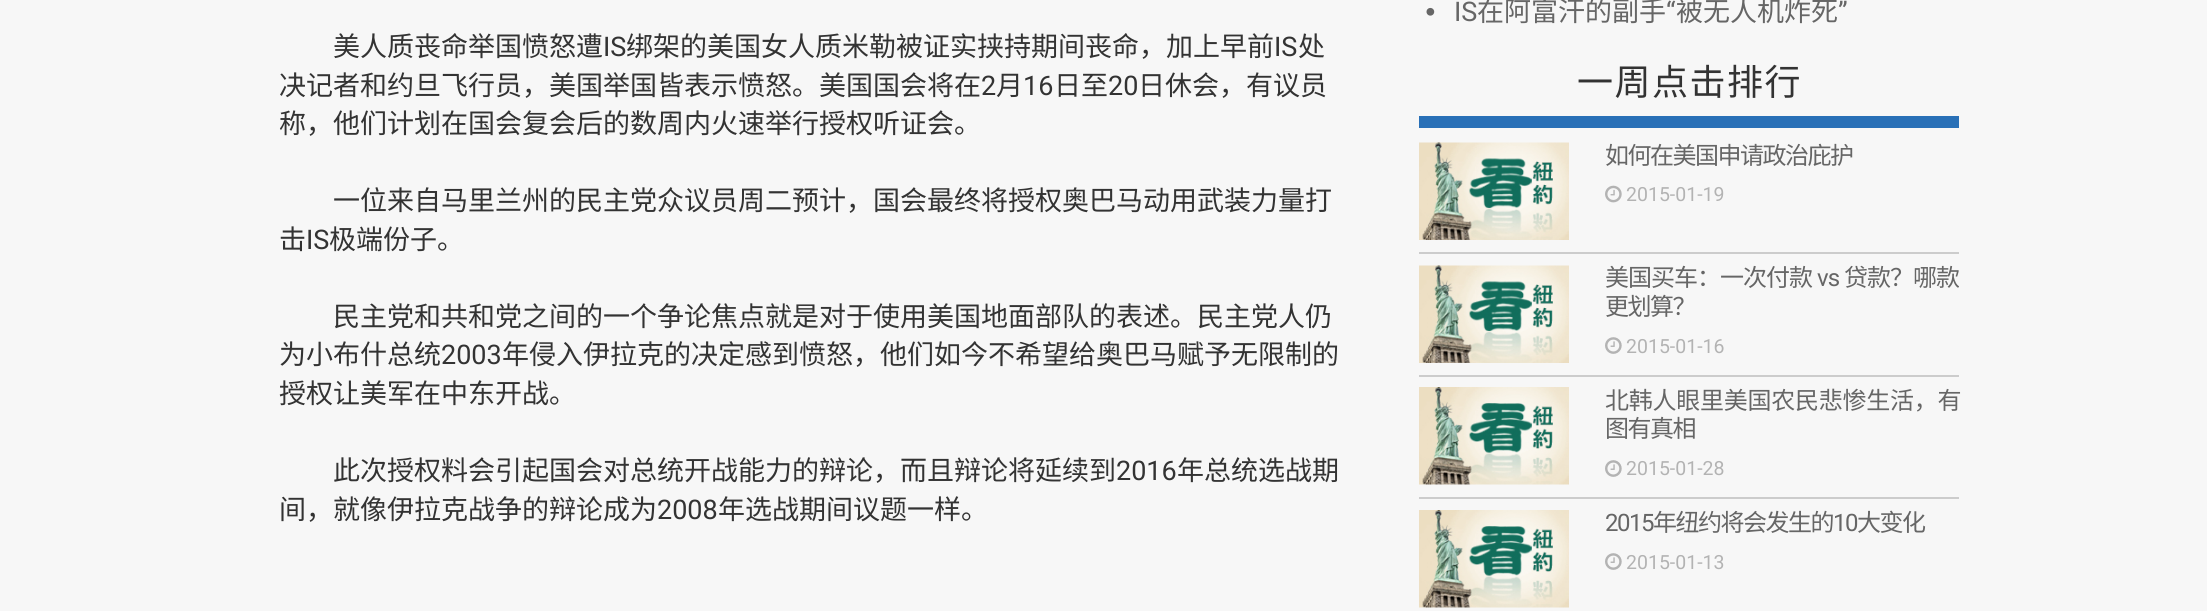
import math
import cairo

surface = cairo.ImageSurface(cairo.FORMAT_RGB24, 2207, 611)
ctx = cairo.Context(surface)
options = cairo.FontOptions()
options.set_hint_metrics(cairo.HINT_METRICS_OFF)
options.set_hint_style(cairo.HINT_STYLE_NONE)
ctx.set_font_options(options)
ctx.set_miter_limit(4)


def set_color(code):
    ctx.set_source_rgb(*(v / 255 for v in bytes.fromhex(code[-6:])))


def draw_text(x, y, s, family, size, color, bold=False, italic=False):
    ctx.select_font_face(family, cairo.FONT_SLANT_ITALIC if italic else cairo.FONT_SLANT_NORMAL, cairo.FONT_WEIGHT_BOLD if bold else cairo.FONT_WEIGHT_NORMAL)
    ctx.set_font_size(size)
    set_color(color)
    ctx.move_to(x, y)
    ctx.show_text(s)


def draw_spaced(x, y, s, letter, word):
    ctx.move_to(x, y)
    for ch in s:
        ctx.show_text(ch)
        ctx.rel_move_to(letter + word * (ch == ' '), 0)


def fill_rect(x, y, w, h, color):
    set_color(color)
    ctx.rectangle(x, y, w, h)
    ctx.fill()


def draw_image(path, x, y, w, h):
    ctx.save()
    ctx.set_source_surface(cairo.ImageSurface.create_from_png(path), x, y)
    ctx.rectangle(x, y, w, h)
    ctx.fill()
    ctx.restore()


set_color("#f7f7f7")
ctx.paint()
draw_text(333, 56, "美人质丧命举国愤怒遭", "Noto Sans CJK SC", 27, "#333333")
draw_text(603, 56, "IS", "Roboto", 27, "#333333")
draw_text(626, 56, "绑架的美国女人质米勒被证实挟持期间丧命，加上早前", "Noto Sans CJK SC", 27, "#333333")
draw_text(1274, 56, "IS", "Roboto", 27, "#333333")
draw_text(1298, 56, "处", "Noto Sans CJK SC", 27, "#333333")
draw_text(279, 95, "决记者和约旦飞行员，美国举国皆表示愤怒。美国国会将在", "Noto Sans CJK SC", 27, "#333333")
draw_text(981, 95, "2", "Roboto", 27, "#333333")
draw_text(996, 95, "月", "Noto Sans CJK SC", 27, "#333333")
draw_text(1023, 95, "16", "Roboto", 27, "#333333")
draw_text(1054, 95, "日至", "Noto Sans CJK SC", 27, "#333333")
draw_text(1108, 95, "20", "Roboto", 27, "#333333")
draw_text(1138, 95, "日休会，有议员", "Noto Sans CJK SC", 27, "#333333")
draw_text(279, 133, "称，他们计划在国会复会后的数周内火速举行授权听证会。", "Noto Sans CJK SC", 27, "#333333")
draw_text(333, 210, "一位来自马里兰州的民主党众议员周二预计，国会最终将授权奥巴马动用武装力量打", "Noto Sans CJK SC", 27, "#333333")
draw_text(279, 249, "击", "Noto Sans CJK SC", 27, "#333333")
draw_text(306, 249, "IS", "Roboto", 27, "#333333")
draw_text(329, 249, "极端份子。", "Noto Sans CJK SC", 27, "#333333")
draw_text(333, 326, "民主党和共和党之间的一个争论焦点就是对于使用美国地面部队的表述。民主党人仍", "Noto Sans CJK SC", 27, "#333333")
draw_text(279, 364, "为小布什总统", "Noto Sans CJK SC", 27, "#333333")
draw_text(441, 364, "2003", "Roboto", 27, "#333333")
draw_text(502, 364, "年侵入伊拉克的决定感到愤怒，他们如今不希望给奥巴马赋予无限制的", "Noto Sans CJK SC", 27, "#333333")
draw_text(279, 403, "授权让美军在中东开战。", "Noto Sans CJK SC", 27, "#333333")
draw_text(333, 480, "此次授权料会引起国会对总统开战能力的辩论，而且辩论将延续到", "Noto Sans CJK SC", 27, "#333333")
draw_text(1116, 480, "2016", "Roboto", 27, "#333333")
draw_text(1177, 480, "年总统选战期", "Noto Sans CJK SC", 27, "#333333")
draw_text(279, 519, "间，就像伊拉克战争的辩论成为", "Noto Sans CJK SC", 27, "#333333")
draw_text(657, 519, "2008", "Roboto", 27, "#333333")
draw_text(718, 519, "年选战期间议题一样。", "Noto Sans CJK SC", 27, "#333333")
draw_image("assets/img1.png", 1426, 7, 9, 9)
draw_text(1454, 21, "IS", "Roboto", 27, "#666666")
draw_text(1477, 21, "在阿富汗的副手", "Noto Sans CJK SC", 27, "#666666")
draw_text(1666, 21, "“", "Roboto", 27, "#666666")
draw_text(1676, 21, "被无人机炸死", "Noto Sans CJK SC", 27, "#666666")
draw_text(1838, 21, "”", "Roboto", 27, "#666666")
fill_rect(1419, 116, 540, 12, "#2970b7")
ctx.select_font_face("Noto Sans CJK SC")
ctx.set_font_size(36)
set_color("#333333")
draw_spaced(1577, 95, "一周点击排行", 1.5, 0)
fill_rect(1419, 252, 540, 2, "#cccccc")
draw_image("assets/img2.png", 1419, 142, 150, 98)
ctx.set_font_size(24)
set_color("#666666")
draw_spaced(1605, 164, "如何在美国申请政治庇护", -1.5, 0)
draw_image("assets/img3.png", 1605, 185, 17, 18)
draw_text(1626, 201, "2015-01-19", "Roboto", 19.5, "#b3b3b3")
fill_rect(1419, 375, 540, 2, "#cccccc")
draw_image("assets/img2.png", 1419, 265, 150, 98)
ctx.select_font_face("Noto Sans CJK SC")
ctx.set_font_size(24)
set_color("#666666")
draw_spaced(1605, 286, "美国买车：一次付款", -1, 0)
ctx.select_font_face("Roboto")
draw_spaced(1817, 286, "vs", -1, 0)
ctx.save()
ctx.rectangle(1605, 264, 354, 57)
ctx.clip()
ctx.select_font_face("Noto Sans CJK SC")
draw_spaced(1844, 286, "贷款？哪款", -1, 0)
ctx.restore()
ctx.select_font_face("Noto Sans CJK SC")
draw_spaced(1605, 315, "更划算？", -1.5, 0)
draw_image("assets/img4.png", 1605, 337, 17, 17)
draw_text(1626, 353, "2015-01-16", "Roboto", 19.5, "#b3b3b3")
fill_rect(1419, 497, 540, 2, "#cccccc")
draw_image("assets/img5.png", 1419, 387, 150, 98)
ctx.select_font_face("Noto Sans CJK SC")
ctx.set_font_size(24)
set_color("#666666")
draw_spaced(1605, 409, "北韩人眼里美国农民悲惨生活，有", -0.25, 0)
draw_spaced(1605, 437, "图有真相", -1.5, 0)
draw_image("assets/img4.png", 1605, 460, 17, 17)
draw_text(1626, 475, "2015-01-28", "Roboto", 19.5, "#b3b3b3")
draw_image("assets/img5.png", 1419, 510, 150, 98)
ctx.set_font_size(24)
set_color("#666666")
draw_spaced(1605, 531, "2015", -1.5, 0)
ctx.select_font_face("Noto Sans CJK SC")
draw_spaced(1653, 531, "年纽约将会发生的", -1.5, 0)
ctx.select_font_face("Roboto")
draw_spaced(1833, 531, "10", -1.5, 0)
ctx.select_font_face("Noto Sans CJK SC")
draw_spaced(1857, 531, "大变化", -1.5, 0)
draw_image("assets/img4.png", 1605, 553, 17, 17)
draw_text(1626, 569, "2015-01-13", "Roboto", 19.5, "#b3b3b3")
surface.write_to_png("output.png")
